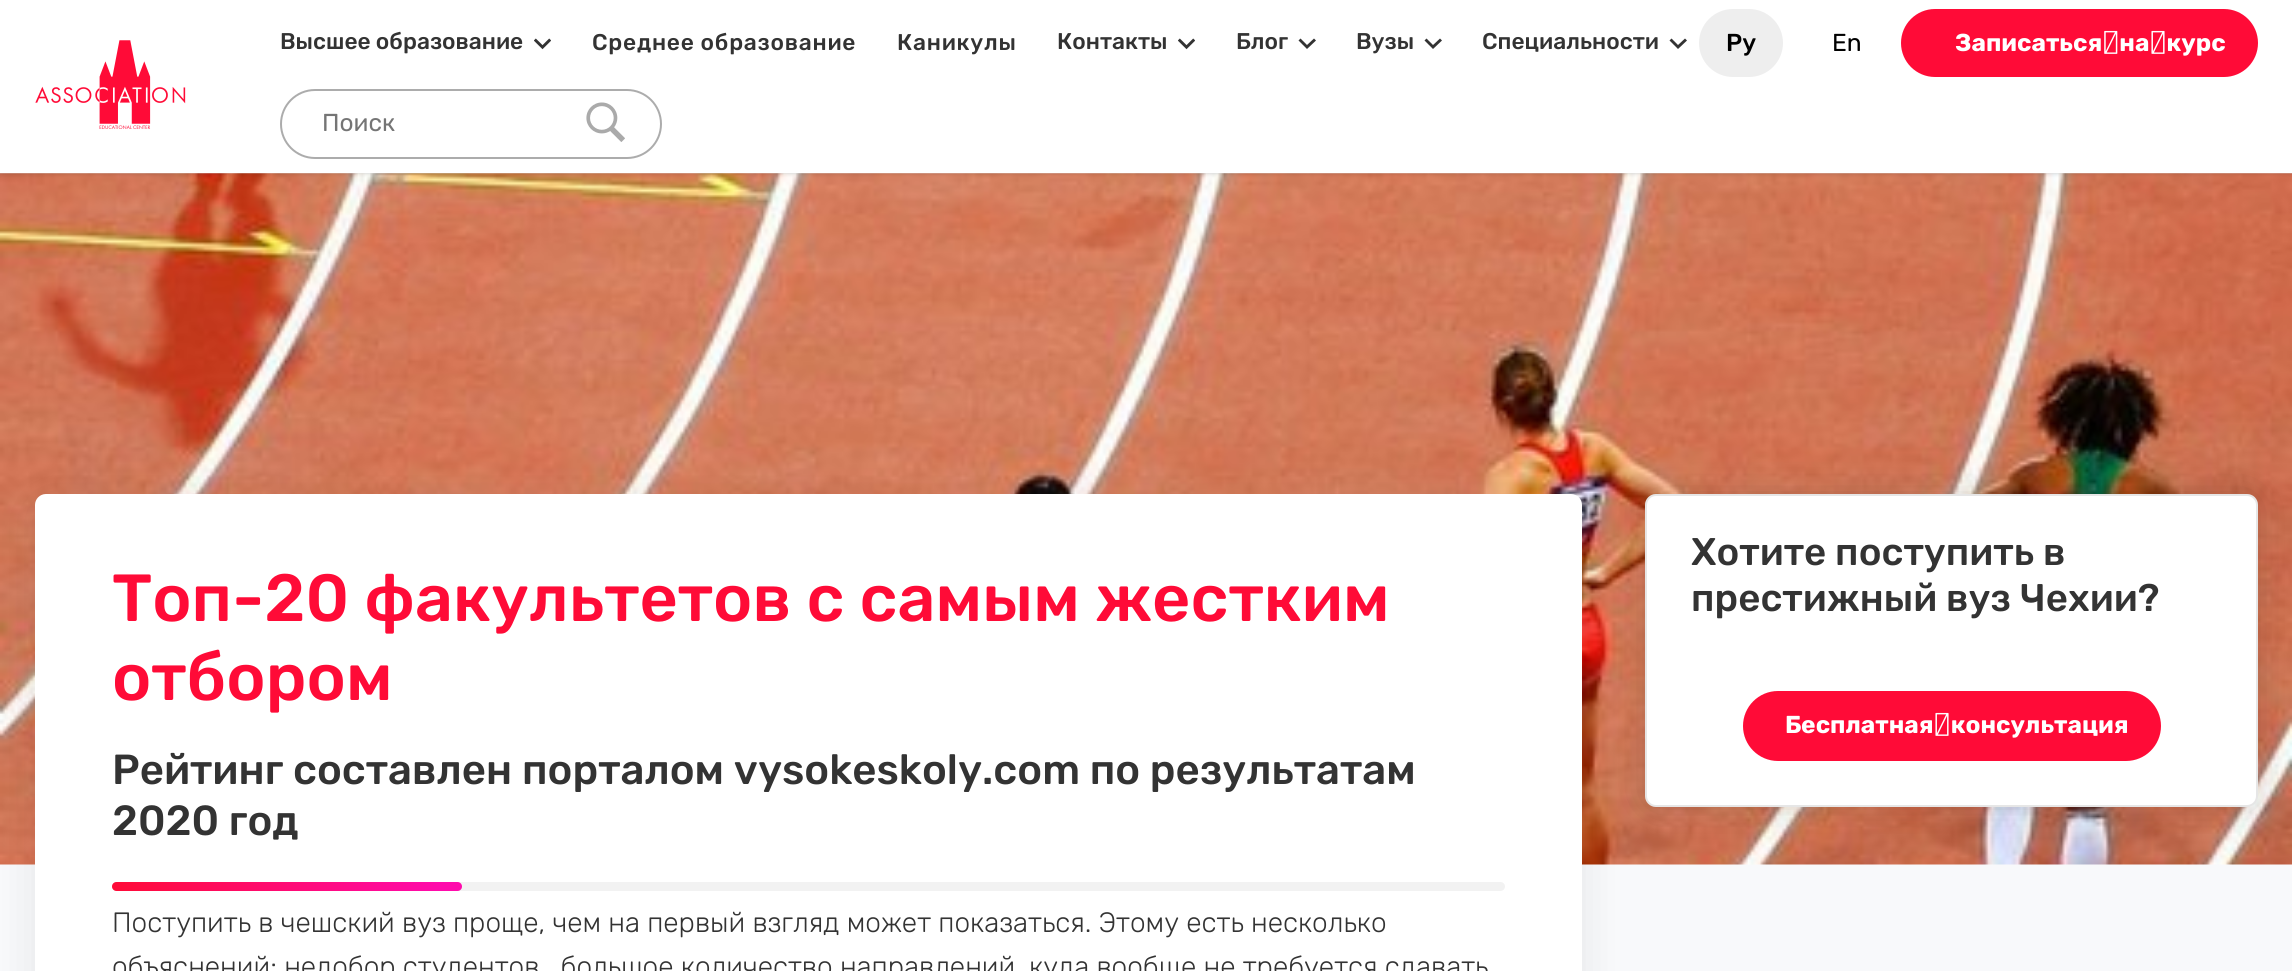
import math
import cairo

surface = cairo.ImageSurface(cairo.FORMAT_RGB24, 2292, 971)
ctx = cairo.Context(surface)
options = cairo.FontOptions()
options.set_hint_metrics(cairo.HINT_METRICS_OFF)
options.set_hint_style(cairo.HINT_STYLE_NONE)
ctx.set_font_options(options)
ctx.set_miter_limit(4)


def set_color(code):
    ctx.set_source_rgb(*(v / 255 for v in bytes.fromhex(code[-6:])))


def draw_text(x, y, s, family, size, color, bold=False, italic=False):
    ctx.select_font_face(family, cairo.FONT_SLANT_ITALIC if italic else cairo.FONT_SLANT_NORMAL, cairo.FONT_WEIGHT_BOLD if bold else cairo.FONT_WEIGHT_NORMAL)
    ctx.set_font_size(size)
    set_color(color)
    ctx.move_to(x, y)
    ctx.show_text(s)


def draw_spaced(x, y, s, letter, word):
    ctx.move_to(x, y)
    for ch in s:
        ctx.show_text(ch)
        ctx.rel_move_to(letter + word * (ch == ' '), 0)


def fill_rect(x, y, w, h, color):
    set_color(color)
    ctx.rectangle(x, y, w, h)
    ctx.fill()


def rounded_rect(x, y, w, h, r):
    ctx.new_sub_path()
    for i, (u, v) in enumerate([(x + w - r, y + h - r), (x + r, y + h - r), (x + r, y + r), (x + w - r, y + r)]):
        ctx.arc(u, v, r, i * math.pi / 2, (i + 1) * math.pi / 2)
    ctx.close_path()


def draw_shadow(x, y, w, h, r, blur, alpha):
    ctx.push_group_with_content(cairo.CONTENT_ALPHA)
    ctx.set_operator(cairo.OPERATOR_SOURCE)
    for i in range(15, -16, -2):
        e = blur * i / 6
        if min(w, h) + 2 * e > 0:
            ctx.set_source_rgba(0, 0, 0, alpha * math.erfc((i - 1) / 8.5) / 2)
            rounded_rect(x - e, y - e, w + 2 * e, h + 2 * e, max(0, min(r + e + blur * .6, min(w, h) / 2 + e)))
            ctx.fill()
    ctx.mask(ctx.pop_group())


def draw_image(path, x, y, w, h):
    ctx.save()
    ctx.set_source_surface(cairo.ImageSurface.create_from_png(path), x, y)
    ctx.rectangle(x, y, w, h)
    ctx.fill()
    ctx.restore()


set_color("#f8f9fb")
ctx.paint()
draw_image("assets/img4.png", 0, 173, 2292, 692)
set_color("#000000")
draw_shadow(0, 0, 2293, 173, 0, 2.5, 0.2)
fill_rect(0, 0, 2292, 173, "#ffffff")
draw_image("assets/img1.png", 35, 40, 151, 89)
draw_text(280, 49, "Высшее образование", "Rubik Light", 22.75, "#333333")
draw_image("assets/img2.png", 534, 38, 17, 12)
draw_spaced(592, 50, "Среднее образование", 0.75, 0)
draw_spaced(897, 50, "Каникулы", 0.75, 0)
draw_text(1057, 49, "Контакты", "Rubik Light", 22.75, "#333333")
draw_image("assets/img2.png", 1178, 38, 17, 12)
draw_text(1236, 49, "Блог", "Rubik Light", 22.75, "#333333")
ctx.new_path()
ctx.move_to(1314, 38.5)
ctx.line_to(1307, 45)
ctx.line_to(1300.5, 38.5)
ctx.line_to(1298.5, 40.5)
ctx.line_to(1307, 49)
ctx.line_to(1316, 40.5)
ctx.close_path()
ctx.fill()
draw_text(1356, 49, "Вузы", "Rubik Light", 22.75, "#333333")
ctx.new_path()
ctx.move_to(1440, 38.5)
ctx.line_to(1433, 45)
ctx.line_to(1426.5, 38.5)
ctx.line_to(1424.5, 40.5)
ctx.line_to(1433, 49)
ctx.line_to(1442, 40.5)
ctx.close_path()
ctx.fill()
draw_text(1482, 49, "Специальности", "Rubik Light", 22.75, "#333333")
ctx.new_path()
ctx.move_to(1685, 38.5)
ctx.line_to(1678, 45)
ctx.line_to(1671.5, 38.5)
ctx.line_to(1669.5, 40.5)
ctx.line_to(1678, 49)
ctx.line_to(1687, 40.5)
ctx.close_path()
ctx.fill()
set_color("#eeeeee")
rounded_rect(1699, 9, 84, 68, 34)
ctx.fill()
draw_text(1726, 51, "Ру", "Rubik Light", 24.5, "#000000")
draw_text(1832, 51, "En", "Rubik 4 Light", 24.5, "#000000")
set_color("#ff0b37")
rounded_rect(1901, 9, 357, 68, 34)
ctx.fill()
draw_text(1955, 51, "Записаться на курс", "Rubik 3 Light", 24.5, "#ffffff")
rounded_rect(281, 90, 380, 68, 34)
set_color("#acacac")
ctx.stroke()
draw_text(322, 131, "Поиск", "Rubik 4 Light", 24.5, "#757575")
draw_image("assets/img3.png", 586, 102, 39, 40)
set_color("#000000")
draw_shadow(35, 501, 1547, 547, 11, 22, 0.08)
set_color("#ffffff")
rounded_rect(35, 494, 1547, 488, 11)
ctx.fill()
draw_text(112, 621, "Топ-20 факультетов с самым жестким", "Rubik Light", 66.5, "#ff0b37")
draw_text(112, 700, "отбором", "Rubik Light", 66.5, "#ff0b37")
draw_text(112, 784, "Рейтинг составлен порталом vysokeskoly.com по результатам", "Rubik Light", 42, "#333333")
draw_text(112, 835, "2020 год", "Rubik Light", 42, "#333333")
set_color("#f2f2f2")
rounded_rect(112, 882, 1393, 9, 4.5)
ctx.fill()
gradient = cairo.LinearGradient(112, 886, 462, 886)
gradient.add_color_stop_rgba(0, 1, 0.043, 0.216, 1)
gradient.add_color_stop_rgba(0.94, 1, 0.043, 0.675, 1)
ctx.set_source(gradient)
rounded_rect(112, 882, 350, 9, 4.5)
ctx.fill()
draw_text(112, 932, "Поступить в чешский вуз проще, чем на первый взгляд может показаться. Этому есть несколько", "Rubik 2 Light", 28, "#333333")
draw_text(112, 976, "объяснений: недобор студентов,  большое количество направлений, куда вообще не требуется сдавать", "Rubik 2 Light", 28, "#333333")
set_color("#000000")
draw_shadow(1645, 494, 613, 313, 11, 17.5, 0.15)
set_color("#ffffff")
rounded_rect(1645, 494, 613, 313, 11)
ctx.fill()
rounded_rect(1646, 495, 611, 311, 10)
ctx.set_source_rgba(0, 0, 0, 0.1)
ctx.stroke()
draw_text(1691, 565, "Хотите поступить в", "Rubik Light", 38.5, "#333333")
draw_text(1691, 611, "престижный вуз Чехии?", "Rubik Light", 38.5, "#333333")
set_color("#ff0b37")
rounded_rect(1743, 691, 418, 70, 35)
ctx.fill()
draw_text(1785, 733, "Бесплатная консультация", "Rubik 3 Light", 24.5, "#ffffff")
surface.write_to_png("output.png")
